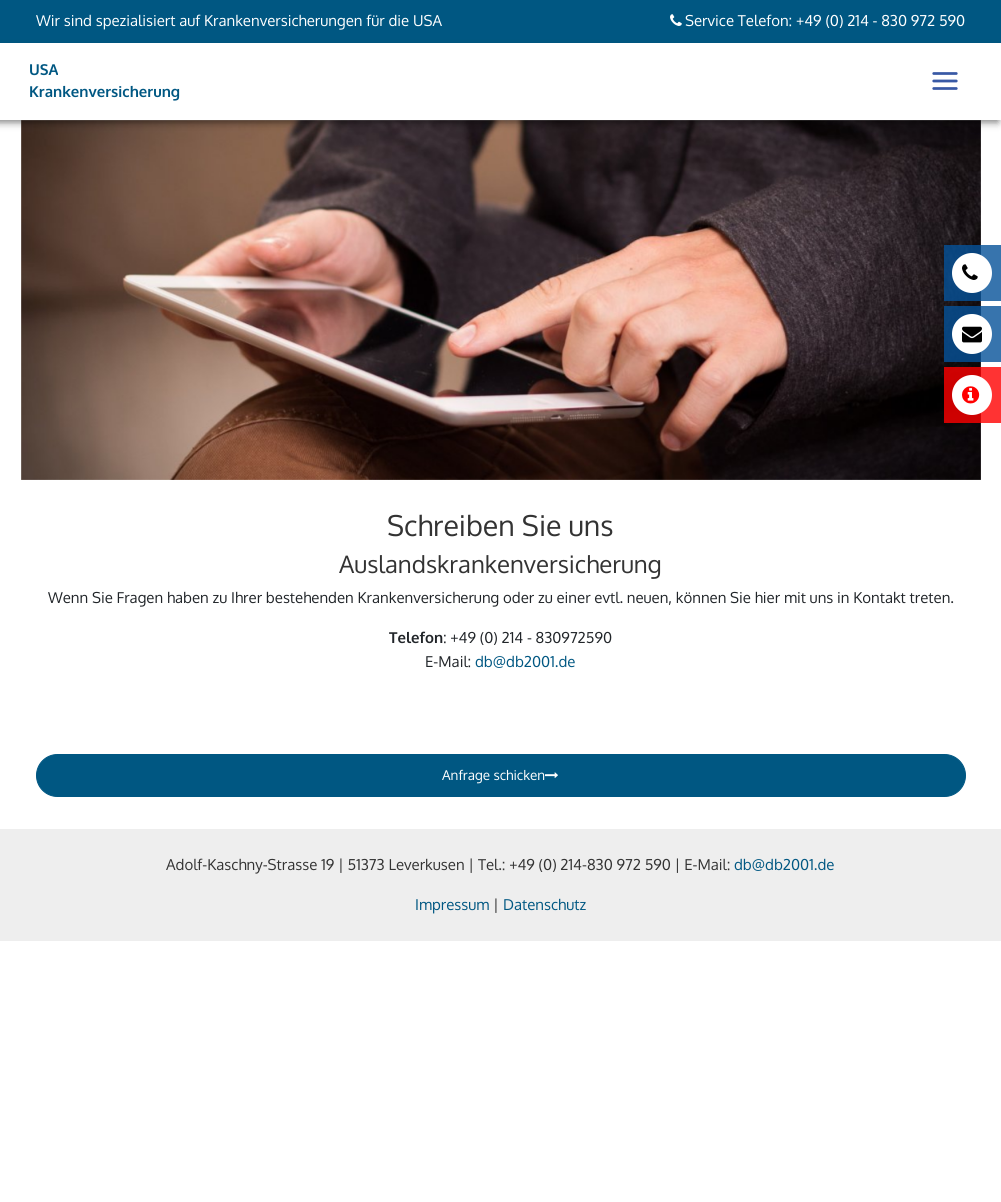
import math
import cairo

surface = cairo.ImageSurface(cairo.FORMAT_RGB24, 1001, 1202)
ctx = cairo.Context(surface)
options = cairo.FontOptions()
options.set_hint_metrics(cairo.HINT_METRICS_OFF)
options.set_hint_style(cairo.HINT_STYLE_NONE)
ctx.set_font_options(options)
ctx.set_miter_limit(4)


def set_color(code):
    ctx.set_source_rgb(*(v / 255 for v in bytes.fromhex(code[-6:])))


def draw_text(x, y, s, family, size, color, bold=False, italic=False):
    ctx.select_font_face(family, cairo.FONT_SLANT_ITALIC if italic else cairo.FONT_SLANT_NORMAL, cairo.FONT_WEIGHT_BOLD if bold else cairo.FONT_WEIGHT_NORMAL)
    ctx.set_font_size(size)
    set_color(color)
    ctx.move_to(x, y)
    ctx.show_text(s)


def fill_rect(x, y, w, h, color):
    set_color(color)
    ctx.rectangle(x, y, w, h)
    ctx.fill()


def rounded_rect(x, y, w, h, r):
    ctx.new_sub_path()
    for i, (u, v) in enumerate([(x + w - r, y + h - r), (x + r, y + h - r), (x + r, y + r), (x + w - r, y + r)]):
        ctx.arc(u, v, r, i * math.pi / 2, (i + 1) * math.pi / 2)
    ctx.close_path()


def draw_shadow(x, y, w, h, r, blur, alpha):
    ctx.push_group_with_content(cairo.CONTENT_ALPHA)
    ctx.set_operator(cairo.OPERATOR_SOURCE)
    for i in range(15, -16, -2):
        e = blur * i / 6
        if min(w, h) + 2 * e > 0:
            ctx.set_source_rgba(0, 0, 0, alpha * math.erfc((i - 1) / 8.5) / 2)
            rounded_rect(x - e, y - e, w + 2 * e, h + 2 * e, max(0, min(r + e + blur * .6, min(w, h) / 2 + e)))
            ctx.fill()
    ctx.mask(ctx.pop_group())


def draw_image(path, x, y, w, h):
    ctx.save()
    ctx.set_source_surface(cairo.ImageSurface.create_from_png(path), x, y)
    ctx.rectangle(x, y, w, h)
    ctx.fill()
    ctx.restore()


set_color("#ffffff")
ctx.paint()
fill_rect(0, 0, 1001, 43, "#005782")
draw_text(36, 26, "Wir sind spezialisiert auf Krankenversicherungen für die USA", "Oxygen", 15, "#ffffff")
draw_image("assets/img1.png", 670, 14, 12, 12)
draw_text(685, 26, "Service Telefon: +49 (0) 214 - 830 972 590", "Oxygen", 15, "#ffffff")
draw_image("assets/img6.png", 21, 120, 960, 360)
ctx.save()
ctx.set_fill_rule(cairo.FILL_RULE_EVEN_ODD)
ctx.new_path()
ctx.move_to(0, 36)
ctx.line_to(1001, 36)
ctx.line_to(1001, 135)
ctx.line_to(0, 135)
ctx.close_path()
ctx.move_to(-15, 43)
ctx.line_to(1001, 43)
ctx.line_to(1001, 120)
ctx.line_to(-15, 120)
ctx.close_path()
ctx.clip()
set_color("#000000")
draw_shadow(-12, 49, 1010, 73, 0, 4, 0.54)
ctx.restore()
draw_text(29, 75, "USA", "Oxygen", 15, "#005782", bold=True)
draw_text(29, 97, "Krankenversicherung", "Oxygen", 15, "#005782", bold=True)
draw_image("assets/img2.png", 932, 72, 26, 18)
ctx.set_source_rgba(0.02, 0.318, 0.6, 0.8)
ctx.rectangle(944, 245, 57, 56)
ctx.fill()
set_color("#ffffff")
ctx.arc(972, 273, 20, 0, 2 * math.pi)
ctx.fill()
draw_image("assets/img3.png", 962, 264, 16, 16)
ctx.set_source_rgba(0.02, 0.318, 0.6, 0.8)
ctx.rectangle(944, 306, 57, 56)
ctx.fill()
set_color("#ffffff")
ctx.arc(972, 334, 20, 0, 2 * math.pi)
ctx.fill()
draw_image("assets/img4.png", 962, 326, 20, 17)
ctx.set_source_rgba(1, 0, 0, 0.8)
ctx.rectangle(944, 367, 57, 56)
ctx.fill()
set_color("#ffffff")
ctx.arc(972, 395, 20, 0, 2 * math.pi)
ctx.fill()
draw_image("assets/img5.png", 962, 386, 18, 18)
draw_text(387, 536, "Schreiben Sie uns", "Oxygen", 28.5, "#333333")
draw_text(339, 573, "Auslandskrankenversicherung", "Oxygen", 24, "#333333")
draw_text(48, 603, "Wenn Sie Fragen haben zu Ihrer bestehenden Krankenversicherung oder zu einer evtl. neuen, können Sie hier mit uns in Kontakt treten.", "Oxygen", 15, "#212529")
draw_text(389, 643, "Telefon", "Oxygen", 15, "#212529", bold=True)
draw_text(443, 643, ": +49 (0) 214 - 830972590", "Oxygen", 15, "#212529")
draw_text(425, 667, "E-Mail:", "Oxygen", 15, "#212529")
draw_text(475, 667, "db@db2001.de", "Oxygen", 15, "#005782")
rounded_rect(36.5, 754.5, 929, 42, 21)
ctx.fill_preserve()
ctx.set_line_width(1)
ctx.stroke()
draw_text(442, 780, "Anfrage schicken", "Oxygen", 13.5, "#ffffff")
draw_image("assets/img7.png", 545, 772, 13, 6)
fill_rect(0, 829, 1001, 112, "#eeeeee")
draw_text(166, 870, "Adolf-Kaschny-Strasse 19 | 51373 Leverkusen | Tel.: +49 (0) 214-830 972 590 | E-Mail:", "Oxygen", 15, "#333333")
draw_text(734, 870, "db@db2001.de", "Oxygen", 15, "#005782")
draw_text(415, 910, "Impressum", "Oxygen", 15, "#005782")
draw_text(493, 910, "|", "Oxygen", 15, "#333333")
draw_text(503, 910, "Datenschutz", "Oxygen", 15, "#005782")
surface.write_to_png("output.png")
